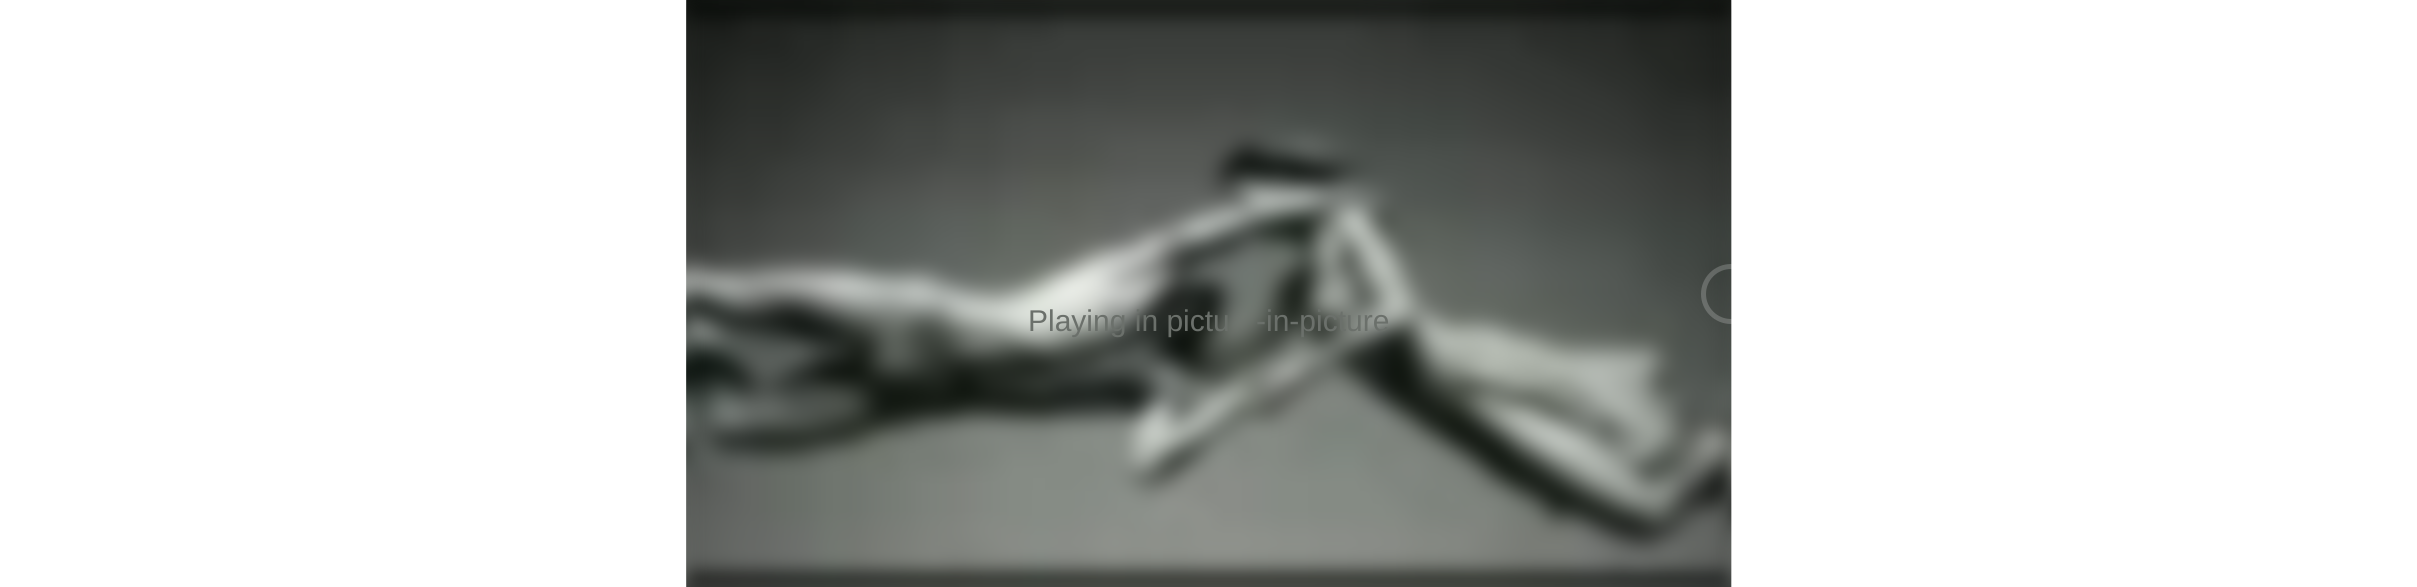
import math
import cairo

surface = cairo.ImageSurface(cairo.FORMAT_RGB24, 2417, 587)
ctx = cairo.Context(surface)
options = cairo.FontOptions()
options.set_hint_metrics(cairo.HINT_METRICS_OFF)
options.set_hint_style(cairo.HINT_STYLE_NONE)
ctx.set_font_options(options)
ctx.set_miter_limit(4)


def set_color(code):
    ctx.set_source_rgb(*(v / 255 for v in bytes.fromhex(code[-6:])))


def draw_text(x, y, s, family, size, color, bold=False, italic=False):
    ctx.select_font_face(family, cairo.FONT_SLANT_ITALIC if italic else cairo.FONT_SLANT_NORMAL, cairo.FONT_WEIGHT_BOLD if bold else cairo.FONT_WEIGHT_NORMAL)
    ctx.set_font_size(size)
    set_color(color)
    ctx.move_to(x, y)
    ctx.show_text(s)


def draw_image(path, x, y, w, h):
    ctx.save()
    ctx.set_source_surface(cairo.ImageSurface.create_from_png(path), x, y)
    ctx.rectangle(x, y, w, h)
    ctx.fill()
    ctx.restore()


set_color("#ffffff")
ctx.paint()
draw_image("assets/img1.png", 686, 0, 1046, 587)
draw_image("assets/img2.png", 686, 0, 1046, 587)
draw_text(1028, 331, "Playing in pictu", "Liberation Sans", 30, "#6b706b")
draw_text(1256, 331, "-in-picture", "Liberation Sans", 30, "#6b706b")
ctx.new_path()
ctx.arc(1731, 294, 27.5, 0, 2 * math.pi)
ctx.set_source_rgba(1, 1, 1, 0.2)
ctx.set_line_width(5)
ctx.stroke()
surface.write_to_png("output.png")
